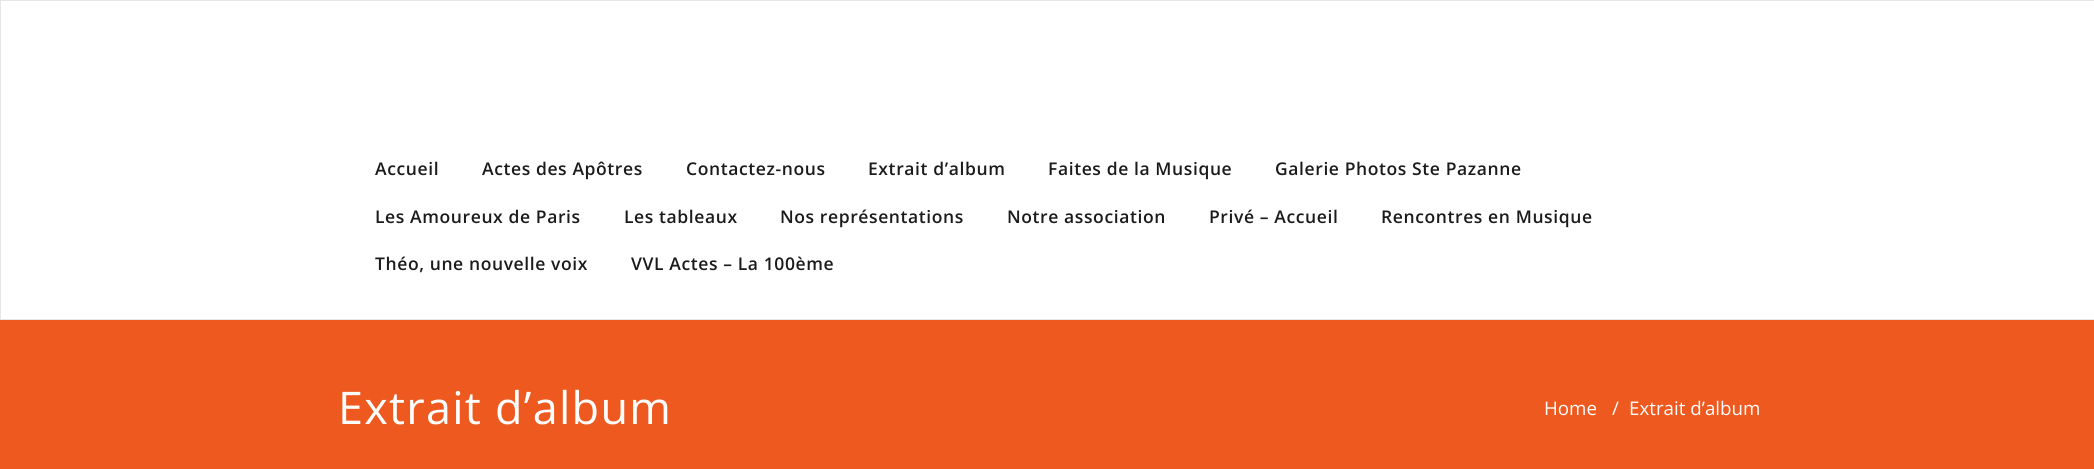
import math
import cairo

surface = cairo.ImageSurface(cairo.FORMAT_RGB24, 2094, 469)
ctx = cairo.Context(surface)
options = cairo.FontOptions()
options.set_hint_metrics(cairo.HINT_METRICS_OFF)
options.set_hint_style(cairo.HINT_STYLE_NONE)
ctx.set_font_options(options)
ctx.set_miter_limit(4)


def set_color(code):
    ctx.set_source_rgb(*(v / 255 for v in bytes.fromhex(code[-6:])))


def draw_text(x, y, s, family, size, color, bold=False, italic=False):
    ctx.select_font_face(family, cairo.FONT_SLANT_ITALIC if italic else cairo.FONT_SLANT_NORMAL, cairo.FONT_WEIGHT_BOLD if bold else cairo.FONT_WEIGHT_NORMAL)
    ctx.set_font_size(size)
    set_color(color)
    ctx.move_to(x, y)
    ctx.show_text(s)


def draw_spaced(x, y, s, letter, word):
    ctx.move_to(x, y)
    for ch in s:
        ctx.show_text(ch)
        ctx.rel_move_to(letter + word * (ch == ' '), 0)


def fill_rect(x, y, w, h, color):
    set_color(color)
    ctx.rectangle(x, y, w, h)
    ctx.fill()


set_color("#ffffff")
ctx.paint()
ctx.rectangle(0.5, 0.5, 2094, 319)
set_color("#e7e7e7")
ctx.set_line_width(1)
ctx.stroke()
ctx.select_font_face("Open Sans SemiBold")
ctx.set_font_size(17.5)
set_color("#1b1b1b")
draw_spaced(375, 175, "Accueil", 0.6, 0)
draw_spaced(482, 175, "Actes des Apôtres", 0.6, 0)
draw_spaced(686, 175, "Contactez-nous", 0.6, 0)
draw_spaced(868, 175, "Extrait d’album", 0.6, 0)
draw_spaced(1048, 175, "Faites de la Musique", 0.6, 0)
draw_spaced(1275, 175, "Galerie Photos Ste Pazanne", 0.6, 0)
draw_spaced(375, 223, "Les Amoureux de Paris", 0.6, 0)
draw_spaced(624, 223, "Les tableaux", 0.6, 0)
draw_spaced(780, 223, "Nos représentations", 0.6, 0)
draw_spaced(1007, 223, "Notre association", 0.6, 0)
draw_spaced(1209, 223, "Privé – Accueil", 0.6, 0)
draw_spaced(1381, 223, "Rencontres en Musique", 0.6, 0)
draw_spaced(375, 270, "Théo, une nouvelle voix", 0.6, 0)
draw_spaced(631, 270, "VVL Actes – La 100ème", 0.6, 0)
fill_rect(0, 320, 2094, 149, "#ee591f")
ctx.select_font_face("Open Sans")
ctx.set_font_size(45)
set_color("#ffffff")
draw_spaced(338, 424, "Extrait d’album", 1.25, 0)
draw_text(1544, 415, "Home", "Open Sans", 18.75, "#ffffff")
draw_text(1612, 415, "/", "Open Sans", 18.75, "#ffffff")
draw_text(1629, 415, "Extrait d’album", "Open Sans", 18.75, "#ffffff")
surface.write_to_png("output.png")
